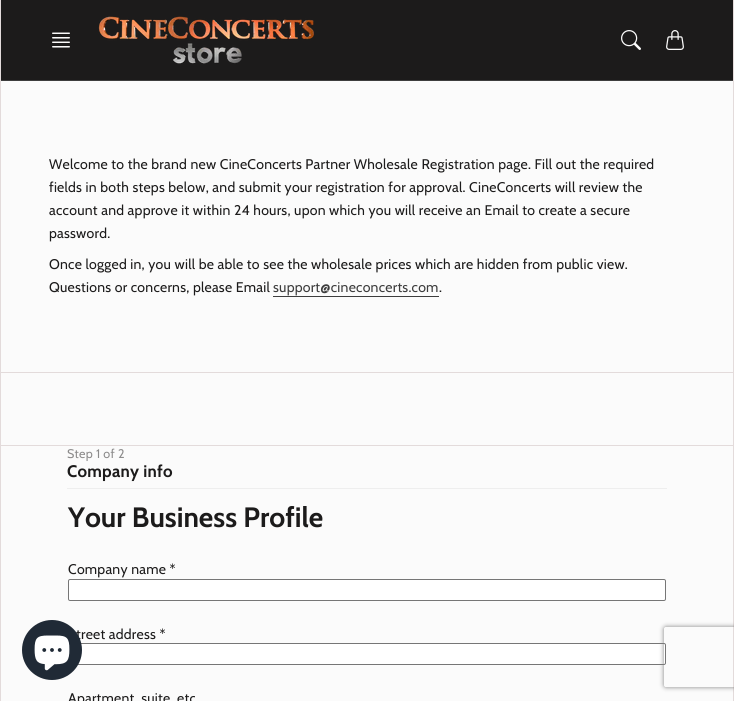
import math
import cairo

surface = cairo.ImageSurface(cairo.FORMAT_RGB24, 734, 701)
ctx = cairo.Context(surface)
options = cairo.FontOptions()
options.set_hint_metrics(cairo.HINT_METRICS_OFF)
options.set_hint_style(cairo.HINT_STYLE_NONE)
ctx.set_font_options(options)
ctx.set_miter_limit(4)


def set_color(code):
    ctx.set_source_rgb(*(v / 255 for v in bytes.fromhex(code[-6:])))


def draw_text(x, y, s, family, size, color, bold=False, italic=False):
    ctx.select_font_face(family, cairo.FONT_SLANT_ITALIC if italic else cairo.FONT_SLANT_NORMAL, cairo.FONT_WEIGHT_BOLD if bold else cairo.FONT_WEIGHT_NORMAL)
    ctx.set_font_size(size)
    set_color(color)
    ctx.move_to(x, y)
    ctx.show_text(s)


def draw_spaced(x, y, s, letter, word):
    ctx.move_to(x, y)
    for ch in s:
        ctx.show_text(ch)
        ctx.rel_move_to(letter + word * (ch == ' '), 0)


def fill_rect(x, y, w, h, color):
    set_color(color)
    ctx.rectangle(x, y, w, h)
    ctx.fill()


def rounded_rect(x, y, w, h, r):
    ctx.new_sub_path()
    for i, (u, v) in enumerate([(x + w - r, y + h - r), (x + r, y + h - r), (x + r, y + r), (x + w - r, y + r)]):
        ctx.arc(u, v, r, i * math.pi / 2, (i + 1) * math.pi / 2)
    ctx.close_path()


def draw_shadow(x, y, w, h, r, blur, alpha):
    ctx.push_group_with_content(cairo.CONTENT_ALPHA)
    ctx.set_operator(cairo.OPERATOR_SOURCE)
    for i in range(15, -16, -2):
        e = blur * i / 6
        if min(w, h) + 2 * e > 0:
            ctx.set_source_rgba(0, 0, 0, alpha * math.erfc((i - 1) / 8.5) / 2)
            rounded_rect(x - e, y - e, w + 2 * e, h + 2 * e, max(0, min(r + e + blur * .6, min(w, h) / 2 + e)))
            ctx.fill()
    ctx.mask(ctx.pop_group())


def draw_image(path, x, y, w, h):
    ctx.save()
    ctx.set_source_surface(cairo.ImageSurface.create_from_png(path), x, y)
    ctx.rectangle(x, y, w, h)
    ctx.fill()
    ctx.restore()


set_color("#fbfbfb")
ctx.paint()
ctx.rectangle(0.5, 0.5, 733, 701)
set_color("#e3dbdb")
ctx.set_line_width(1)
ctx.stroke()
fill_rect(1, 0, 732, 80, "#1c1b1b")
fill_rect(1, 80, 732, 1, "#3e3e3e")
draw_image("assets/img1.png", 52, 32, 18, 16)
draw_image("assets/img2.png", 98, 16, 216, 48)
draw_image("assets/img3.png", 621, 30, 20, 20)
draw_image("assets/img4.png", 666, 30, 18, 20)
fill_rect(1, 372, 732, 1, "#e3dbdb")
ctx.select_font_face("Cabin")
ctx.set_font_size(14)
set_color("#1c1b1b")
draw_spaced(49, 169, "Welcome to the brand new CineConcerts Partner Wholesale Registration page. Fill out the required", 0.25, 0)
draw_spaced(49, 192, "fields in both steps below, and submit your registration for approval. CineConcerts will review the", 0.25, 0)
draw_spaced(49, 215, "account and approve it within 24 hours, upon which you will receive an Email to create a secure", 0.25, 0)
draw_spaced(49, 238, "password.", 0.25, 0)
draw_spaced(49, 269, "Once logged in, you will be able to see the wholesale prices which are hidden from public view.", 0.25, 0)
draw_spaced(49, 292, "Questions or concerns, please Email", 0.25, 0)
set_color("#3d3d3d")
draw_spaced(273, 292, "support@cineconcerts.com", 0.25, 0)
fill_rect(273, 296, 166, 1, "#3d3d3d")
set_color("#1c1b1b")
draw_spaced(439, 292, ".", 0.25, 0)
fill_rect(1, 445, 732, 1, "#e3dbdb")
fill_rect(67, 488, 600, 1, "#eeeeee")
ctx.set_font_size(12.5)
set_color("#8c8b8b")
draw_spaced(67, 458, "Step 1 of 2", 0.25, 0)
ctx.select_font_face("Cabin", cairo.FONT_SLANT_NORMAL, cairo.FONT_WEIGHT_BOLD)
ctx.set_font_size(16.75)
set_color("#1c1b1b")
draw_spaced(67, 477, "Company info", 0.25, 0)
draw_text(68, 527, "Your Business Profile", "Cabin", 28, "#1c1b1b", bold=True)
ctx.select_font_face("Cabin")
ctx.set_font_size(14)
draw_spaced(68, 574, "Company name *", 0.25, 0)
set_color("#ffffff")
rounded_rect(68.5, 579.5, 597, 21, 1.5)
ctx.fill_preserve()
set_color("#767676")
ctx.stroke()
set_color("#1c1b1b")
draw_spaced(76, 639, "treet address *", 0.25, 0)
set_color("#ffffff")
rounded_rect(68.5, 643.5, 597, 21, 1.5)
ctx.fill_preserve()
set_color("#767676")
ctx.stroke()
set_color("#1c1b1b")
draw_spaced(68, 703, "Apartment, suite, etc", 0.25, 0)
ctx.save()
ctx.set_fill_rule(cairo.FILL_RULE_EVEN_ODD)
ctx.new_path()
ctx.move_to(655, 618)
ctx.line_to(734, 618)
ctx.line_to(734, 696)
ctx.line_to(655, 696)
ctx.close_path()
ctx.move_to(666, 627)
ctx.line_to(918, 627)
ctx.curve_to(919, 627, 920, 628, 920, 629)
ctx.line_to(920, 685)
ctx.curve_to(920, 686, 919, 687, 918, 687)
ctx.line_to(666, 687)
ctx.curve_to(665, 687, 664, 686, 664, 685)
ctx.line_to(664, 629)
ctx.curve_to(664, 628, 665, 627, 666, 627)
ctx.close_path()
ctx.clip()
set_color("#808080")
draw_shadow(664, 627, 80, 60, 2, 2.5, 1)
ctx.restore()
set_color("#202a36")
ctx.arc(52, 650, 30, 0, 2 * math.pi)
ctx.fill()
draw_image("assets/img5.png", 34, 635, 36, 36)
surface.write_to_png("output.png")
